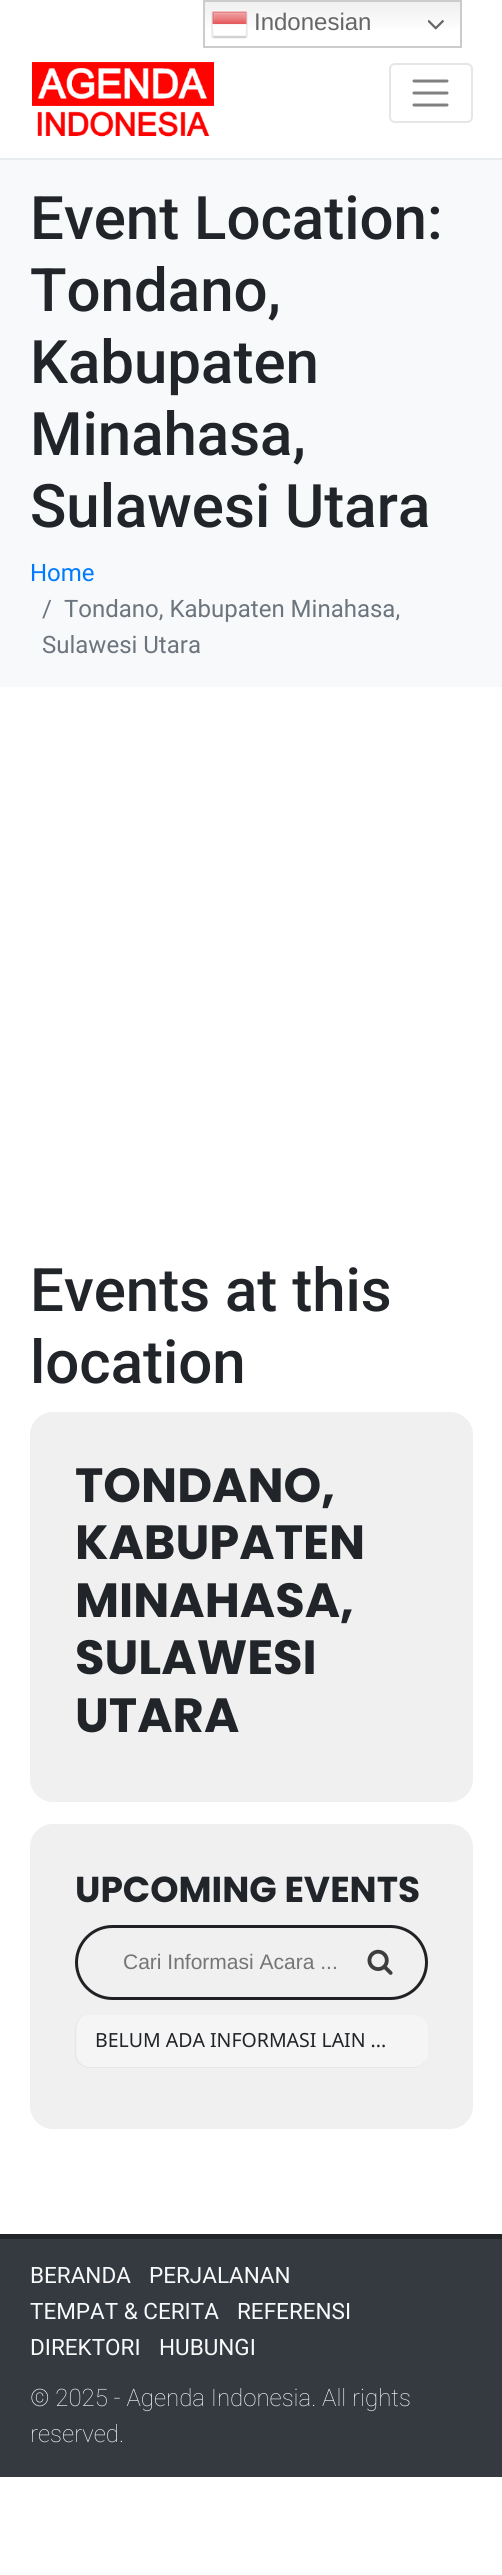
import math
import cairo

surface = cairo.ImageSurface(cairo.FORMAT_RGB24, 502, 2575)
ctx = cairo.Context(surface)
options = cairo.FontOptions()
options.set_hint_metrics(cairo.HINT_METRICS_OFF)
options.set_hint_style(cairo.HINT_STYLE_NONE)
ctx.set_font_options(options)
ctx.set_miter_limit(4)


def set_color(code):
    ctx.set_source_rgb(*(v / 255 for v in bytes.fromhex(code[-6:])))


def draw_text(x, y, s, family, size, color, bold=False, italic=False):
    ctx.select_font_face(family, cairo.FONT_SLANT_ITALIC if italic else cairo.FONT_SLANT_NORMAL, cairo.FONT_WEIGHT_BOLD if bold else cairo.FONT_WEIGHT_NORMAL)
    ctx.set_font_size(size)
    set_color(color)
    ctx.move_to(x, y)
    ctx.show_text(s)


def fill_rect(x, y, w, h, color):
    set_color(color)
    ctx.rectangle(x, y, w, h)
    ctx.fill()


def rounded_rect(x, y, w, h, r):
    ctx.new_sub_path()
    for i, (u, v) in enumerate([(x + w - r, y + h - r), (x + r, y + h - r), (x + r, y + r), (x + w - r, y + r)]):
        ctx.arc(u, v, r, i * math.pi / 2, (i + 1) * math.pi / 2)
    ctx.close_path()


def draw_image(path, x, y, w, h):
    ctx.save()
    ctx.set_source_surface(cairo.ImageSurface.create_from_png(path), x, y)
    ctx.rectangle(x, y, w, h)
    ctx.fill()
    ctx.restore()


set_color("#ffffff")
ctx.paint()
gradient = cairo.LinearGradient(332, 0, 332, 48)
gradient.add_color_stop_rgba(0, 0.937, 0.937, 0.937, 1)
gradient.add_color_stop_rgba(0.7, 1, 1, 1, 1)
ctx.set_source(gradient)
ctx.rectangle(205, 2, 255, 26)
ctx.fill()
ctx.rectangle(204, 1, 257, 46)
set_color("#cccccc")
ctx.stroke()
draw_image("assets/img1.png", 211, 11, 37, 28)
draw_text(254, 30, "Indonesian", "Liberation Sans", 24, "#666666")
draw_image("assets/img2.png", 428, 20, 16, 10)
fill_rect(0, 158, 502, 2, "#e9ecef")
draw_image("assets/img3.png", 32, 62, 182, 75)
rounded_rect(390, 64, 82, 58, 5)
set_color("#e6e6e6")
ctx.stroke()
ctx.new_path()
ctx.move_to(414, 81)
ctx.line_to(447, 81)
ctx.move_to(414, 93)
ctx.line_to(447, 93)
ctx.move_to(414, 105)
ctx.line_to(447, 105)
set_color("#808080")
ctx.set_line_width(3)
ctx.set_line_cap(cairo.LINE_CAP_ROUND)
ctx.stroke()
fill_rect(0, 160, 502, 527, "#f8f9fa")
draw_text(30, 239, "Event Location:", "Roboto Medium", 60, "#212529")
draw_text(30, 311, "Tondano,", "Roboto Medium", 60, "#212529")
draw_text(30, 383, "Kabupaten", "Roboto Medium", 60, "#212529")
draw_text(30, 455, "Minahasa,", "Roboto Medium", 60, "#212529")
draw_text(30, 527, "Sulawesi Utara", "Roboto Medium", 60, "#212529")
draw_text(30, 581, "Home", "Roboto", 24, "#007bff")
draw_text(42, 617, "/", "Roboto", 24, "#6c757d")
draw_text(64, 617, "Tondano, Kabupaten Minahasa,", "Roboto", 24, "#6c757d")
draw_text(42, 653, "Sulawesi Utara", "Roboto", 24, "#6c757d")
draw_text(30, 1311, "Events at this", "Roboto Medium", 60, "#212529")
draw_text(30, 1383, "location", "Roboto Medium", 60, "#212529")
set_color("#f0f0f0")
rounded_rect(30, 1412, 443, 390, 23)
ctx.fill()
draw_text(75, 1502, "TONDANO,", "Poppins", 48, "#212529", bold=True)
draw_text(75, 1559, "KABUPATEN", "Poppins", 48, "#212529", bold=True)
draw_text(75, 1617, "MINAHASA,", "Poppins", 48, "#212529", bold=True)
draw_text(75, 1674, "SULAWESI", "Poppins", 48, "#212529", bold=True)
draw_text(75, 1732, "UTARA", "Poppins", 48, "#212529", bold=True)
set_color("#f0f0f0")
rounded_rect(30, 1824, 443, 305, 23)
ctx.fill()
draw_text(75, 1902, "UPCOMING EVENTS", "Poppins", 36, "#212529", bold=True)
rounded_rect(76.5, 1926.5, 350, 72, 36)
set_color("#202124")
ctx.set_line_cap(cairo.LINE_CAP_BUTT)
ctx.stroke()
draw_text(123, 1969, "Cari Informasi Acara ...", "Liberation Sans", 21, "#757575")
draw_image("assets/img4.png", 367, 1949, 26, 26)
set_color("#e5e5e5")
ctx.new_path()
ctx.move_to(412, 2068)
ctx.curve_to(421, 2068, 428, 2062, 428, 2054)
ctx.curve_to(428, 2061, 421, 2067, 412, 2067)
ctx.line_to(90, 2067)
ctx.curve_to(83, 2067, 76, 2061, 76, 2054)
ctx.line_to(76, 2030)
ctx.curve_to(76, 2023, 80, 2018, 85, 2015)
ctx.line_to(84, 2015)
ctx.curve_to(79, 2018, 75, 2023, 75, 2030)
ctx.line_to(75, 2054)
ctx.curve_to(75, 2062, 82, 2068, 90, 2068)
ctx.close_path()
ctx.fill()
set_color("#f5f5f5")
ctx.new_path()
ctx.move_to(87, 2015)
ctx.line_to(416, 2015)
ctx.curve_to(423, 2017, 428, 2023, 428, 2030)
ctx.line_to(428, 2054)
ctx.curve_to(428, 2061, 421, 2067, 412, 2067)
ctx.line_to(90, 2067)
ctx.curve_to(84, 2067, 79, 2063, 77, 2057)
ctx.line_to(77, 2025)
ctx.curve_to(78, 2020, 82, 2016, 86, 2015)
ctx.close_path()
ctx.fill()
draw_text(95, 2047, "BELUM ADA INFORMASI LAIN ...", "Noto Sans", 19.5, "#212529")
fill_rect(0, 2239, 502, 238, "#343a40")
fill_rect(0, 2234, 502, 5, "#212529")
draw_text(30, 2283, "BERANDA", "Roboto", 22.5, "#f8f9fa")
draw_text(149, 2283, "PERJALANAN", "Roboto", 22.5, "#f8f9fa")
draw_text(30, 2319, "TEMPAT & CERITA", "Roboto", 22.5, "#f8f9fa")
draw_text(237, 2319, "REFERENSI", "Roboto", 22.5, "#f8f9fa")
draw_text(30, 2355, "DIREKTORI", "Roboto", 22.5, "#f8f9fa")
draw_text(159, 2355, "HUBUNGI", "Roboto", 22.5, "#f8f9fa")
draw_text(30, 2406, "© 2025 - Agenda Indonesia. All rights", "Roboto Thin", 24, "#f8f9fa")
draw_text(30, 2442, "reserved.", "Roboto Thin", 24, "#f8f9fa")
surface.write_to_png("output.png")
